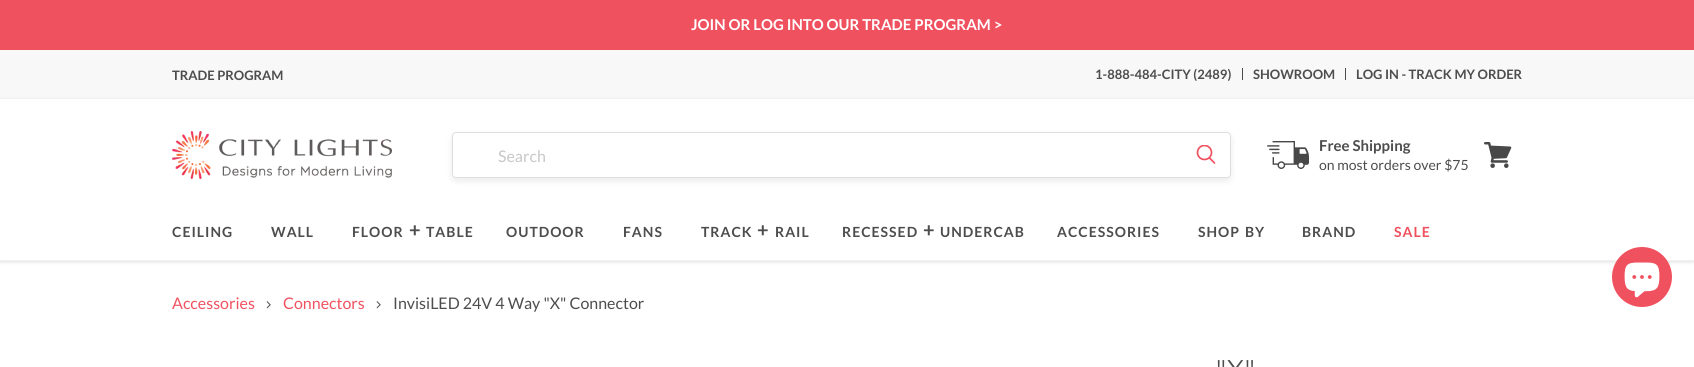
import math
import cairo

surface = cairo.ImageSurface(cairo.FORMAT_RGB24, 1694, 367)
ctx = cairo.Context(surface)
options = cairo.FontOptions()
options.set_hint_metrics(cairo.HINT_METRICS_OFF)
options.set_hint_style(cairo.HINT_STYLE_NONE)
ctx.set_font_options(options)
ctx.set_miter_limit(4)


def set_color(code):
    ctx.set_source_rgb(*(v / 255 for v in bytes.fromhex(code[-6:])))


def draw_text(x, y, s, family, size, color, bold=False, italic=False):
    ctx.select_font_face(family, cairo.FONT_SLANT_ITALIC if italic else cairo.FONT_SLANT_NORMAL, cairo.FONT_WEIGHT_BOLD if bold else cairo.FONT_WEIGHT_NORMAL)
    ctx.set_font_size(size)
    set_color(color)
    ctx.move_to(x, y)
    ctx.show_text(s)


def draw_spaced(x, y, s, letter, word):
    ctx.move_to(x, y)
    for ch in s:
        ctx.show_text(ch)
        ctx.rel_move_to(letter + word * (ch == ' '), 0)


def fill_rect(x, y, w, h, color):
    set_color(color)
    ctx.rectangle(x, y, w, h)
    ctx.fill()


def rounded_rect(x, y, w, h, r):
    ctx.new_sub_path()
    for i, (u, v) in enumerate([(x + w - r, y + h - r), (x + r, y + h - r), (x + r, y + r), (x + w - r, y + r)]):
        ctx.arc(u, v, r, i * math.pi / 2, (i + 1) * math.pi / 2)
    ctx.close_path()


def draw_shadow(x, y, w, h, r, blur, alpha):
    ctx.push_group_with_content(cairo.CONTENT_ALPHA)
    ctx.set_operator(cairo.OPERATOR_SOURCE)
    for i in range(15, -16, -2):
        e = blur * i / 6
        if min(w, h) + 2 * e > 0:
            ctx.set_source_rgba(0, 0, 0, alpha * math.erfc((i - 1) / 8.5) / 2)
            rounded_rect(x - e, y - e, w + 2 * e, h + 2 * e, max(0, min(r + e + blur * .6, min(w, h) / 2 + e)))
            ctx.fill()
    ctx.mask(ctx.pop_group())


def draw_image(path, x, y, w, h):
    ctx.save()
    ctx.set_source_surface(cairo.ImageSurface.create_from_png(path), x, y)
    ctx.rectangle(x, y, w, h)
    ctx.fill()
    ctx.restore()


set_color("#ffffff")
ctx.paint()
fill_rect(0, 0, 1694, 50, "#f0515f")
draw_text(691, 30, "JOIN OR LOG INTO OUR TRADE PROGRAM >", "Lato", 15, "#ffffff", bold=True)
fill_rect(0, 50, 1694, 49, "#f8f8f8")
draw_text(172, 80, "TRADE PROGRAM", "Lato", 13, "#4d4d4d", bold=True)
draw_text(1095, 79, "1-888-484-CITY (2489)", "Lato", 13, "#4d4d4d", bold=True)
fill_rect(1242, 68, 1, 12, "#4c4c4c")
draw_text(1253, 79, "SHOWROOM", "Lato", 13, "#4d4d4d", bold=True)
fill_rect(1345, 68, 1, 12, "#4c4c4c")
draw_text(1356, 79, "LOG IN - TRACK MY ORDER", "Lato", 13, "#4d4d4d", bold=True)
ctx.save()
ctx.set_fill_rule(cairo.FILL_RULE_EVEN_ODD)
ctx.new_path()
ctx.move_to(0, 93)
ctx.line_to(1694, 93)
ctx.line_to(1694, 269)
ctx.line_to(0, 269)
ctx.close_path()
ctx.move_to(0, 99)
ctx.line_to(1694, 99)
ctx.line_to(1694, 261)
ctx.line_to(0, 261)
ctx.close_path()
ctx.clip()
set_color("#808080")
draw_shadow(0, 100, 1694, 162, 0, 2, 0.25)
ctx.restore()
fill_rect(0, 260, 1694, 1, "#f1f1f1")
draw_image("assets/img1.png", 172, 131, 220, 48)
set_color("#808080")
draw_shadow(452, 135, 779, 46, 4, 3.5, 0.16)
set_color("#ffffff")
rounded_rect(452.5, 132.5, 778, 45, 3.5)
ctx.fill_preserve()
set_color("#dfdfdf")
ctx.set_line_width(1)
ctx.stroke()
draw_text(498, 162, "Search", "Lato", 16, "#c7c7c7")
ctx.new_path()
ctx.move_to(1214.5, 163)
ctx.line_to(1209.5, 158)
set_color("#f0515f")
ctx.set_line_width(1.7)
ctx.set_line_cap(cairo.LINE_CAP_ROUND)
ctx.stroke()
ctx.save()
ctx.rectangle(1196, 145, 20, 21)
ctx.clip()
ctx.arc(1204.5, 152.5, 7, 0, 2 * math.pi)
ctx.set_line_cap(cairo.LINE_CAP_BUTT)
ctx.stroke()
ctx.restore()
draw_image("assets/img2.png", 1267, 141, 42, 28)
draw_text(1319, 151, "Free Shipping", "Lato", 15, "#4d4d4d", bold=True)
draw_text(1319, 170, "on most orders over $75", "Lato", 14, "#4d4d4d")
draw_image("assets/img3.png", 1484, 142, 28, 26)
ctx.select_font_face("Lato", cairo.FONT_SLANT_NORMAL, cairo.FONT_WEIGHT_BOLD)
draw_spaced(172, 237, "CEILING", 1, 0)
draw_spaced(271, 237, "WALL", 1, 0)
draw_spaced(352, 237, "FLOOR", 1, 0)
ctx.set_font_size(20)
draw_spaced(409, 237, "+", 1, 0)
ctx.set_font_size(14)
draw_spaced(426, 237, "TABLE", 1, 0)
draw_spaced(506, 237, "OUTDOOR", 1, 0)
draw_spaced(623, 237, "FANS", 1, 0)
draw_spaced(701, 237, "TRACK", 1, 0)
ctx.set_font_size(20)
draw_spaced(757, 237, "+", 1, 0)
ctx.set_font_size(14)
draw_spaced(775, 237, "RAIL", 1, 0)
draw_spaced(842, 237, "RECESSED", 1, 0)
ctx.set_font_size(20)
draw_spaced(923, 237, "+", 1, 0)
ctx.set_font_size(14)
draw_spaced(940, 237, "UNDERCAB", 1, 0)
draw_spaced(1057, 237, "ACCESSORIES", 1, 0)
draw_spaced(1198, 237, "SHOP", 1, 0)
draw_spaced(1245, 237, "BY", 1, 0)
draw_spaced(1302, 237, "BRAND", 1, 0)
set_color("#f0515f")
draw_spaced(1394, 237, "SALE", 1, 0)
ctx.new_path()
ctx.arc(1642, 277, 30, 0, 2 * math.pi)
ctx.fill()
draw_image("assets/img4.png", 1624, 262, 36, 36)
draw_text(172, 309, "Accessories", "Lato", 16, "#f0515f")
draw_image("assets/img5.png", 266, 301, 5, 8)
draw_text(283, 309, "Connectors", "Lato", 16, "#f0515f")
draw_image("assets/img6.png", 376, 301, 5, 8)
draw_text(393, 309, "InvisiLED 24V 4 Way \"X\" Connector", "Lato", 16, "#4d4d4d")
ctx.select_font_face("Montserrat")
ctx.set_font_size(27)
draw_spaced(1216, 379, "\"X\"", 0.5, 0)
surface.write_to_png("output.png")
